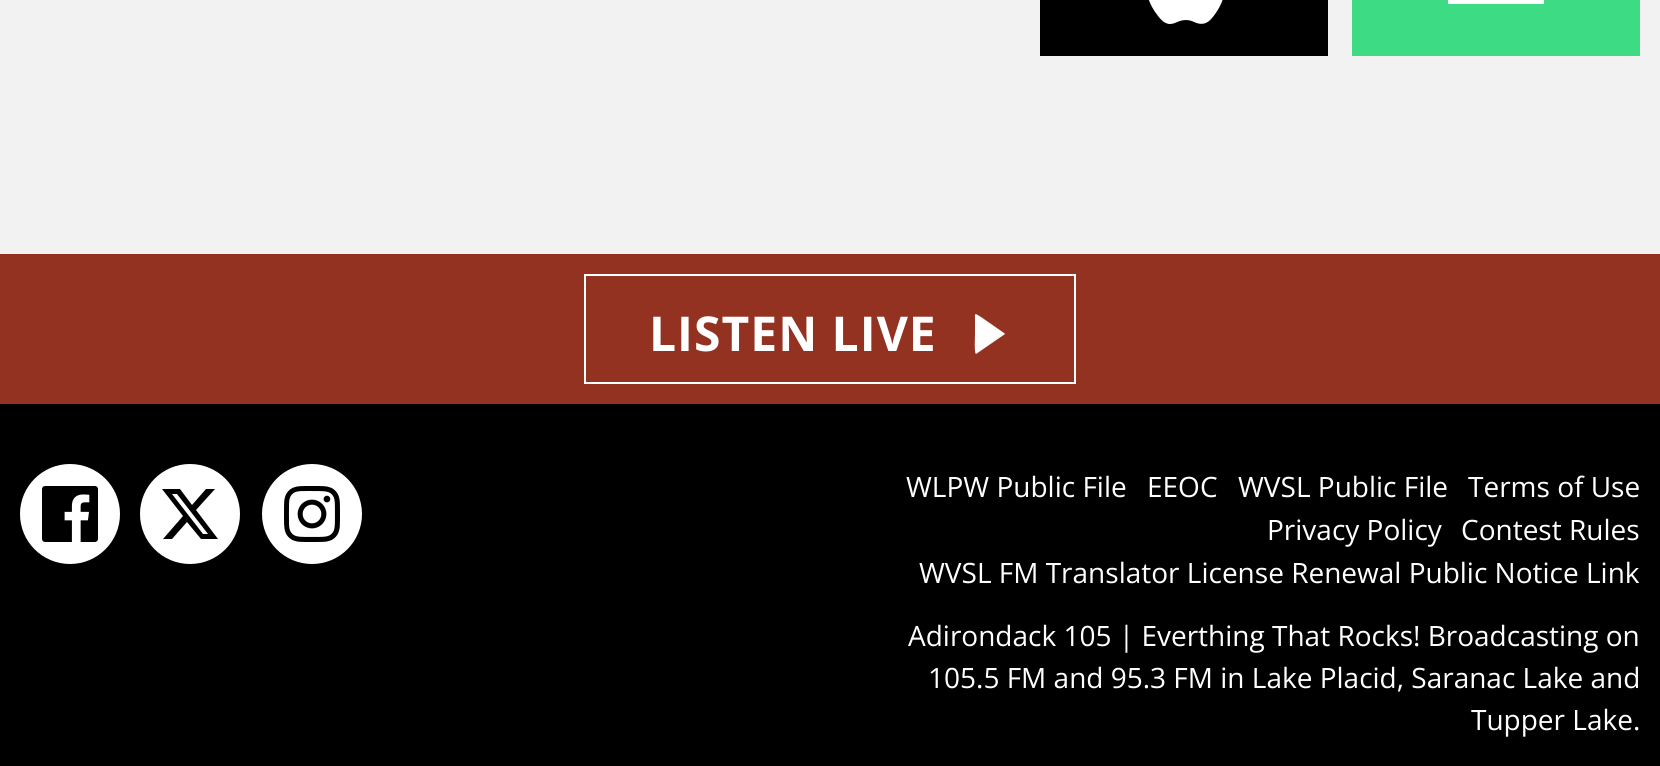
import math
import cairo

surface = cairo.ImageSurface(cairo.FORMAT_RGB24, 1660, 766)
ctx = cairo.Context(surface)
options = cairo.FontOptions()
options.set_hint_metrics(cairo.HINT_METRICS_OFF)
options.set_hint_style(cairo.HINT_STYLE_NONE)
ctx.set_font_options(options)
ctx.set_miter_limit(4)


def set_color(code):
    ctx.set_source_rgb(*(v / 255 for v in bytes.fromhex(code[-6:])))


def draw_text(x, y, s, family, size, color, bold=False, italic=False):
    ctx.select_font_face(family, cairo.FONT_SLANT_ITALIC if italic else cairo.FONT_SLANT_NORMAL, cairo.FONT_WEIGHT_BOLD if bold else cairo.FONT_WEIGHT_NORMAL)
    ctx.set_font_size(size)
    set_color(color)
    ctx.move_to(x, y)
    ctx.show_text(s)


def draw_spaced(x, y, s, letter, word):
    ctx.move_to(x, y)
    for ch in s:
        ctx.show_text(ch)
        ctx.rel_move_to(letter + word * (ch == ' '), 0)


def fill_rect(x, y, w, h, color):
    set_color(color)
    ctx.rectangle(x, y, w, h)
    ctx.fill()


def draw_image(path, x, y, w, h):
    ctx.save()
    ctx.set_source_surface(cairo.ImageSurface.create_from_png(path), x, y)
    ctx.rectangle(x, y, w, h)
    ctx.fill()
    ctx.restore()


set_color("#f2f2f2")
ctx.paint()
fill_rect(1040, 0, 288, 56, "#000000")
draw_image("assets/img1.png", 1148, 0, 75, 24)
fill_rect(1352, 0, 288, 56, "#3ddc84")
fill_rect(1448, 0, 96, 4, "#ffffff")
fill_rect(0, 254, 1660, 150, "#943221")
ctx.rectangle(585, 275, 490, 108)
set_color("#ffffff")
ctx.stroke()
ctx.select_font_face("Open Sans", cairo.FONT_SLANT_NORMAL, cairo.FONT_WEIGHT_BOLD)
ctx.set_font_size(48)
draw_spaced(649, 351, "LISTEN LIVE", 1, 0)
ctx.new_path()
ctx.move_to(1004, 333)
ctx.line_to(981, 317)
ctx.curve_to(974, 313, 975, 312, 975, 321)
ctx.line_to(975, 334)
ctx.curve_to(975, 336, 974, 353, 976, 354)
ctx.line_to(1005, 334)
ctx.close_path()
ctx.fill()
fill_rect(0, 404, 1660, 362, "#000000")
set_color("#ffffff")
ctx.arc(70, 514, 50, 0, 2 * math.pi)
ctx.fill()
draw_image("assets/img2.png", 42, 486, 56, 56)
ctx.arc(190, 514, 50, 0, 2 * math.pi)
ctx.fill()
set_color("#000000")
ctx.new_path()
ctx.move_to(206, 489)
ctx.line_to(215, 489)
ctx.line_to(196, 510)
ctx.line_to(218, 539)
ctx.line_to(201, 539)
ctx.line_to(187, 522)
ctx.line_to(172, 539)
ctx.line_to(163, 539)
ctx.line_to(183, 516)
ctx.line_to(162, 489)
ctx.line_to(180, 489)
ctx.line_to(192, 505)
ctx.close_path()
ctx.move_to(203, 534)
ctx.line_to(208, 534)
ctx.line_to(177, 494)
ctx.line_to(172, 494)
ctx.close_path()
ctx.fill()
set_color("#ffffff")
ctx.arc(312, 514, 50, 0, 2 * math.pi)
ctx.fill()
draw_image("assets/img3.png", 284, 486, 56, 56)
draw_text(906, 497, "WLPW Public File", "Open Sans", 28, "#ffffff")
draw_text(1147, 497, "EEOC", "Open Sans", 28, "#ffffff")
draw_text(1238, 497, "WVSL Public File", "Open Sans", 28, "#ffffff")
draw_text(1468, 497, "Terms of Use", "Open Sans", 28, "#ffffff")
draw_text(1267, 540, "Privacy Policy", "Open Sans", 28, "#ffffff")
draw_text(1461, 540, "Contest Rules", "Open Sans", 28, "#ffffff")
draw_text(919, 583, "WVSL FM Translator License Renewal Public Notice Link", "Open Sans", 28, "#ffffff")
draw_text(908, 646, "Adirondack 105 | Everthing That Rocks! Broadcasting on", "Open Sans", 28, "#ffffff")
draw_text(928, 688, "105.5 FM and 95.3 FM in Lake Placid, Saranac Lake and", "Open Sans", 28, "#ffffff")
draw_text(1471, 730, "Tupper Lake.", "Open Sans", 28, "#ffffff")
surface.write_to_png("output.png")
